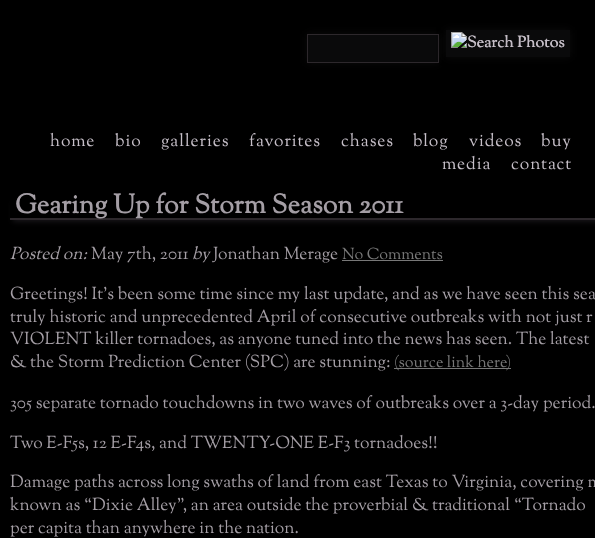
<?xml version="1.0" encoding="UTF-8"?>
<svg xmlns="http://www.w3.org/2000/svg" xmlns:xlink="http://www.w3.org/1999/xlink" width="595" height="538">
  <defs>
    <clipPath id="clip1"><path d="M 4 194 h 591 v 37 h -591 z m 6 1 h 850 v 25 h -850 z" clip-rule="evenodd" /></clipPath>
  </defs>
  <rect width="100%" height="100%" fill="#000000" />
  <rect x="307" y="34" width="132" height="29" fill="#0c0b0c" filter="blur(4px)" />
  <rect x="307.5" y="34.5" width="131" height="28" fill="#0a0a0b" stroke="#2d282c" />
  <rect x="446" y="30" width="124" height="27" fill="#0c0b0c" filter="blur(4px)" />
  <rect x="446" y="30" width="124" height="27" fill="#0a0a0b" />
  <image x="451" y="32" width="114" height="16" xlink:href="image1.png" />
  <g clip-path="url(#clip1)">
    <rect x="13" y="203" width="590" height="19" fill="#161417" filter="blur(2.5px)" />
  </g>
  <rect x="10" y="218" width="585" height="2" fill="#2d282c" />
  <rect x="342" y="260" width="101" height="1" fill="#787878" />
  <rect x="394" y="368" width="117" height="1" fill="#787878" />
  <text x="467" y="47" style="font-family: Sorts Mill Goudy; font-size: 16px; fill: #c6bfc8">Search Photos</text>
  <text x="50" y="146" style="font-family: Sorts Mill Goudy; font-size: 17.35px; letter-spacing: 0.9px; fill: #c6bfc8">home</text>
  <text x="115" y="146" style="font-family: Sorts Mill Goudy; font-size: 17.35px; letter-spacing: 0.9px; fill: #c6bfc8">bio</text>
  <text x="161" y="146" style="font-family: Sorts Mill Goudy; font-size: 17.35px; letter-spacing: 0.9px; fill: #c6bfc8">galleries</text>
  <text x="249" y="146" style="font-family: Sorts Mill Goudy; font-size: 17.35px; letter-spacing: 0.9px; fill: #c6bfc8">favorites</text>
  <text x="341" y="146" style="font-family: Sorts Mill Goudy; font-size: 17.35px; letter-spacing: 0.9px; fill: #c6bfc8">chases</text>
  <text x="413" y="146" style="font-family: Sorts Mill Goudy; font-size: 17.35px; letter-spacing: 0.9px; fill: #c6bfc8">blog</text>
  <text x="469" y="146" style="font-family: Sorts Mill Goudy; font-size: 17.35px; letter-spacing: 0.9px; fill: #c6bfc8">videos</text>
  <text x="541" y="146" style="font-family: Sorts Mill Goudy; font-size: 17.35px; letter-spacing: 0.9px; fill: #c6bfc8">buy</text>
  <text x="442" y="169" style="font-family: Sorts Mill Goudy; font-size: 17.35px; letter-spacing: 0.9px; fill: #c6bfc8">media</text>
  <text x="511" y="169" style="font-family: Sorts Mill Goudy; font-size: 17.35px; letter-spacing: 0.9px; fill: #c6bfc8">contact</text>
  <text x="15" y="213" style="font-family: Sorts Mill Goudy; font-size: 26.7px; font-weight: bold; fill: #a49ea5">Gearing Up for Storm Season 2011</text>
  <text x="10" y="259" style="font-family: Sorts Mill Goudy; font-size: 17.35px; font-style: italic; fill: #a49ea5">Posted on:</text>
  <text x="91" y="259" style="font-family: Sorts Mill Goudy; font-size: 17.35px; fill: #a49ea5">May 7th, 2011</text>
  <text x="192" y="259" style="font-family: Sorts Mill Goudy; font-size: 17.35px; font-style: italic; fill: #a49ea5">by</text>
  <text x="213" y="259" style="font-family: Sorts Mill Goudy; font-size: 17.35px; fill: #a49ea5">Jonathan Merage</text>
  <text x="342" y="259" style="font-family: Sorts Mill Goudy; font-size: 16px; fill: #787878">No Comments</text>
  <text x="10" y="299" style="font-family: Sorts Mill Goudy; font-size: 17.35px; fill: #a49ea5">Greetings! It’s been some time since my last update, and as we have seen this sea</text>
  <text x="10" y="322" style="font-family: Sorts Mill Goudy; font-size: 17.35px; fill: #a49ea5">truly historic and unprecedented April of consecutive outbreaks with not just r</text>
  <text x="10" y="344" style="font-family: Sorts Mill Goudy; font-size: 17.35px; fill: #a49ea5">VIOLENT killer tornadoes, as anyone tuned into the news has seen. The latest</text>
  <text x="10" y="367" style="font-family: Sorts Mill Goudy; font-size: 17.35px; fill: #a49ea5">&amp; the Storm Prediction Center (SPC) are stunning:</text>
  <text x="394" y="367" style="font-family: Sorts Mill Goudy; font-size: 16px; fill: #787878">(source link here)</text>
  <text x="10" y="408" style="font-family: Sorts Mill Goudy; font-size: 17.35px; fill: #a49ea5">305 separate tornado touchdowns in two waves of outbreaks over a 3-day period.</text>
  <text x="10" y="448" style="font-family: Sorts Mill Goudy; font-size: 17.35px; fill: #a49ea5">Two E-F5s, 12 E-F4s, and TWENTY-ONE E-F3 tornadoes!!</text>
  <text x="10" y="487" style="font-family: Sorts Mill Goudy; font-size: 17.35px; fill: #a49ea5">Damage paths across long swaths of land from east Texas to Virginia, covering m</text>
  <text x="10" y="510" style="font-family: Sorts Mill Goudy; font-size: 17.35px; fill: #a49ea5">known as “Dixie Alley”, an area outside the proverbial &amp; traditional “Tornado</text>
  <text x="10" y="533" style="font-family: Sorts Mill Goudy; font-size: 17.35px; fill: #a49ea5">per capita than anywhere in the nation.</text>
</svg>
